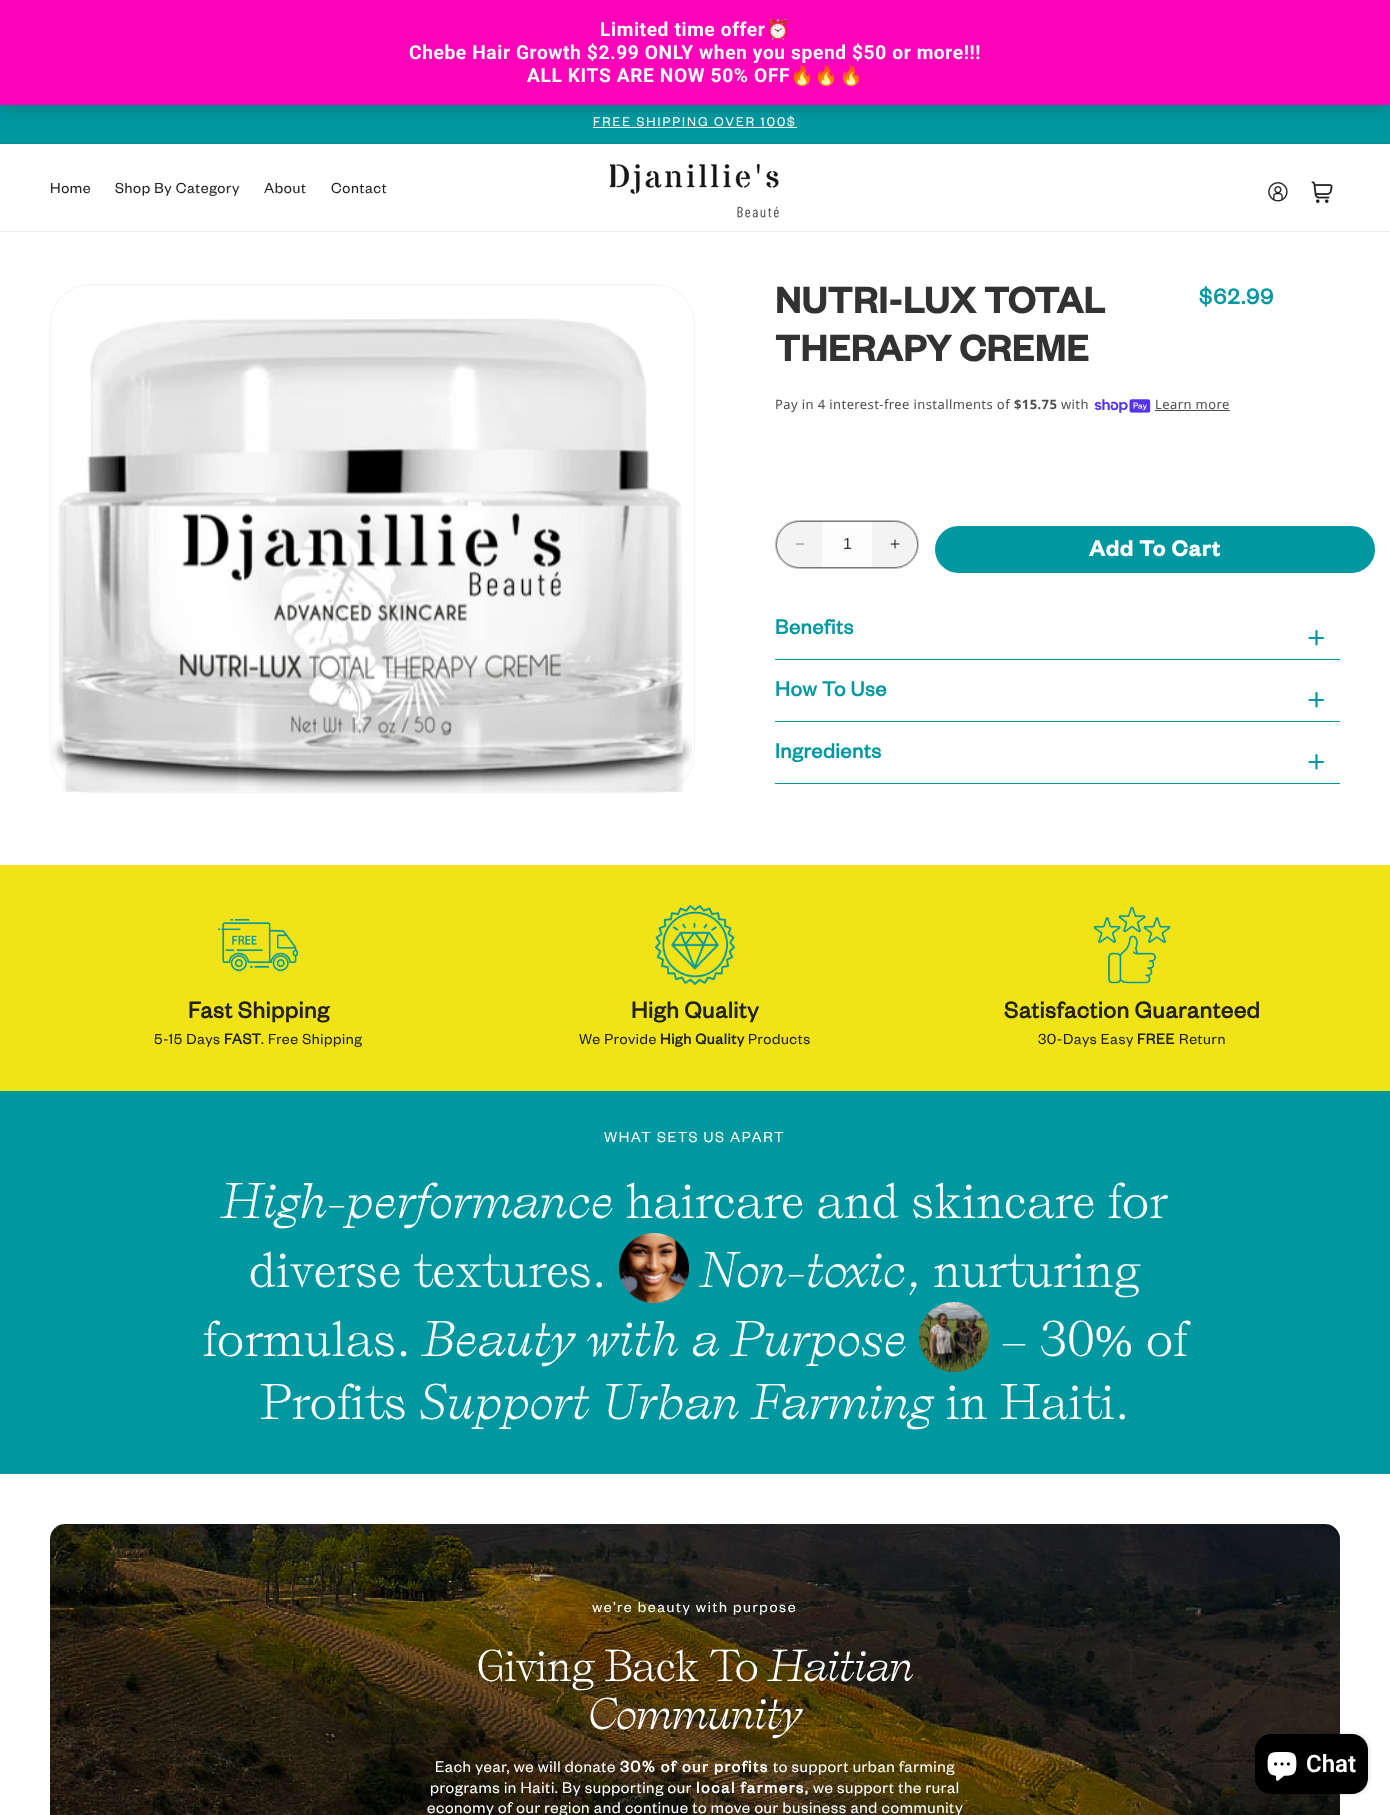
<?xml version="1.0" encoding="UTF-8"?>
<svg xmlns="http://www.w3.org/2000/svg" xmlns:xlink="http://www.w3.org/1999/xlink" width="1390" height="1815">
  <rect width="100%" height="100%" fill="#ffffff" />
  <rect y="105" width="1390" height="38" fill="#0098a0" />
  <rect x="2" y="6" width="1386" height="101" fill="#000000" fill-opacity="0.05" filter="blur(3px)" />
  <rect x="593" y="127" width="204" height="1" fill="#ffffff" />
  <rect x="3" y="13" width="1384" height="99" fill="#000000" fill-opacity="0.1" filter="blur(7.5px)" />
  <rect width="1390" height="105" fill="#fc03ba" />
  <rect y="143" width="1390" height="1" fill="#018d95" />
  <rect y="231" width="1390" height="1" fill="#ececec" />
  <image x="610" y="164" width="169" height="54" xlink:href="image1.png" />
  <image x="1268" y="182" width="20" height="20" xlink:href="image2.png" />
  <image x="1311" y="181" width="22" height="22" xlink:href="image3.png" />
  <rect x="50.5" y="284.5" width="644" height="508" rx="39.5" fill="none" stroke="#f3f3f3" />
  <image x="51" y="318" width="642" height="474" xlink:href="image4.png" />
  <image x="1094" y="399" width="57" height="14" xlink:href="image5.png" />
  <rect x="1155" y="410" width="75" height="1" fill="#4d4d4d" />
  <rect x="775.5" y="520.5" width="143" height="48" rx="24" fill="#f3f3f3" stroke="#b8b8b8" />
  <image x="795" y="543" width="10" height="2" xlink:href="image6.png" />
  <rect x="822" y="521" width="50" height="47" fill="#fdfdfd" />
  <image x="890" y="539" width="10" height="10" xlink:href="image7.png" />
  <rect x="776.5" y="521.5" width="141" height="46" rx="23" fill="none" stroke="#121212" stroke-opacity="0.55" />
  <rect x="935" y="526" width="440" height="47" rx="23.5" fill="#0098a0" />
  <rect x="775" y="659" width="565" height="1" fill="#0098a0" />
  <path d="M 1316.5 631 v 13.5 m 6.5 -6.5 h -13.5" fill="none" stroke="#0098a0" stroke-width="2.2" stroke-linecap="round" />
  <rect x="775" y="721" width="565" height="1" fill="#0098a0" />
  <path d="M 1316.5 693 v 13.5 m 6.5 -6.5 h -13.5" fill="none" stroke="#0098a0" stroke-width="2.2" stroke-linecap="round" />
  <rect x="775" y="783" width="565" height="1" fill="#0098a0" />
  <path d="M 1316.5 755 v 13.5 m 6.5 -6.5 h -13.5" fill="none" stroke="#0098a0" stroke-width="2.2" stroke-linecap="round" />
  <rect y="865" width="1390" height="226" fill="#f0e419" />
  <image x="218" y="918" width="80" height="54" xlink:href="image8.png" />
  <image x="655" y="905" width="80" height="80" xlink:href="image9.png" />
  <image x="1093" y="906" width="78" height="78" xlink:href="image10.png" />
  <rect y="1091" width="1390" height="383" fill="#0098a0" />
  <image x="619" y="1233" width="70" height="70" xlink:href="image11.png" />
  <image x="919" y="1302" width="70" height="70" xlink:href="image12.png" />
  <image x="50" y="1524" width="1290" height="291" xlink:href="image13.png" />
  <rect x="1255" y="1734" width="113" height="60" rx="16" fill="#000000" fill-opacity="0.15" filter="blur(2.5px)" />
  <rect x="1255" y="1734" width="113" height="60" rx="16" fill="#000000" />
  <image x="1267" y="1752" width="30" height="29" xlink:href="image14.png" />
  <text x="600" y="36" style="font-family: Roboto; font-size: 19.2px; font-weight: bold; letter-spacing: 0.6px; fill: #ffffff">Limited time offer</text>
  <text x="766" y="36" style="font-family: Noto Color Emoji; font-size: 19.2px; font-weight: bold; letter-spacing: 0.6px; fill: #ffffff">⏰</text>
  <text x="409" y="59" style="font-family: Roboto; font-size: 19.2px; font-weight: bold; letter-spacing: 0.6px; fill: #ffffff">Chebe Hair Growth $2.99 ONLY when you spend $50 or more!!!</text>
  <text x="527" y="82" style="font-family: Roboto; font-size: 19.2px; font-weight: bold; letter-spacing: 0.6px; fill: #ffffff">ALL KITS ARE NOW 50% OFF</text>
  <text x="790" y="82" style="font-family: Noto Color Emoji; font-size: 19.2px; font-weight: bold; letter-spacing: 0.6px; fill: #ffffff">🔥🔥🔥</text>
  <text x="593" y="126" style="font-family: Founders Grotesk; font-size: 14px; letter-spacing: 2px; fill: #ffffff">FREE SHIPPING OVER 100$</text>
  <text x="50" y="193" style="font-family: Founders Grotesk; font-size: 16px; letter-spacing: 0.6px; fill: #222222">Home</text>
  <text x="115" y="193" style="font-family: Founders Grotesk; font-size: 16px; letter-spacing: 0.6px; fill: #222222">Shop By Category</text>
  <text x="264" y="193" style="font-family: Founders Grotesk; font-size: 16px; letter-spacing: 0.6px; fill: #222222">About</text>
  <text x="331" y="193" style="font-family: Founders Grotesk; font-size: 16px; letter-spacing: 0.6px; fill: #222222">Contact</text>
  <text x="775" y="313" style="font-family: 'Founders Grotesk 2'; font-size: 40px; font-weight: bold; letter-spacing: 0.6px; fill: #323232">NUTRI-LUX TOTAL</text>
  <text x="775" y="361" style="font-family: 'Founders Grotesk 2'; font-size: 40px; font-weight: bold; letter-spacing: 0.6px; fill: #323232">THERAPY CREME</text>
  <text x="1199" y="304" style="font-family: Founders Grotesk; font-size: 23.5px; font-weight: bold; letter-spacing: 1.25px; fill: #0098a0">$62.99</text>
  <text x="775" y="409" style="font-family: Noto Sans; font-size: 13px; letter-spacing: 0.4px; fill: #4d4d4d">Pay in 4 interest-free installments of</text>
  <text x="1014" y="409" style="font-family: Noto Sans; font-size: 13px; font-weight: bold; letter-spacing: 0.4px; fill: #4d4d4d">$15.75</text>
  <text x="1061" y="409" style="font-family: Noto Sans; font-size: 13px; letter-spacing: 0.4px; fill: #4d4d4d">with</text>
  <text x="1155" y="409" style="font-family: Noto Sans; font-size: 13px; letter-spacing: 0.4px; fill: #4d4d4d">Learn more</text>
  <text x="843" y="549" style="font-family: Liberation Sans; font-size: 16px; fill: #323232">1</text>
  <text x="1089" y="556" style="font-family: 'Founders Grotesk 2'; font-size: 24px; font-weight: bold; letter-spacing: 1px; fill: #ffffff">Add To Cart</text>
  <text x="775" y="634" style="font-family: Founders Grotesk; font-size: 22.5px; font-weight: bold; letter-spacing: 0.6px; fill: #0098a0">Benefits</text>
  <text x="775" y="696" style="font-family: Founders Grotesk; font-size: 22.5px; font-weight: bold; letter-spacing: 0.6px; fill: #0098a0">How To Use</text>
  <text x="775" y="758" style="font-family: Founders Grotesk; font-size: 22.5px; font-weight: bold; letter-spacing: 0.6px; fill: #0098a0">Ingredients</text>
  <text x="188" y="1018" style="font-family: Founders Grotesk; font-size: 25px; font-weight: bold; letter-spacing: 0.6px; fill: #222222">Fast Shipping</text>
  <text x="154" y="1044" style="font-family: Founders Grotesk; font-size: 16px; letter-spacing: 0.6px; fill: #222222">5-15 Days</text>
  <text x="224" y="1044" style="font-family: Founders Grotesk; font-size: 16px; font-weight: bold; letter-spacing: 0.6px; fill: #222222">FAST</text>
  <text x="261" y="1044" style="font-family: Founders Grotesk; font-size: 16px; letter-spacing: 0.6px; fill: #222222">. Free Shipping</text>
  <text x="631" y="1018" style="font-family: Founders Grotesk; font-size: 25px; font-weight: bold; letter-spacing: 0.6px; fill: #222222">High Quality</text>
  <text x="579" y="1044" style="font-family: Founders Grotesk; font-size: 16px; letter-spacing: 0.6px; fill: #222222">We Provide</text>
  <text x="660" y="1044" style="font-family: Founders Grotesk; font-size: 16px; font-weight: bold; letter-spacing: 0.6px; fill: #222222">High Quality</text>
  <text x="748" y="1044" style="font-family: Founders Grotesk; font-size: 16px; letter-spacing: 0.6px; fill: #222222">Products</text>
  <text x="1004" y="1018" style="font-family: Founders Grotesk; font-size: 25px; font-weight: bold; letter-spacing: 0.6px; fill: #222222">Satisfaction Guaranteed</text>
  <text x="1038" y="1044" style="font-family: Founders Grotesk; font-size: 16px; letter-spacing: 0.6px; fill: #222222">30-Days Easy</text>
  <text x="1137" y="1044" style="font-family: Founders Grotesk; font-size: 16px; font-weight: bold; letter-spacing: 0.6px; fill: #222222">FREE</text>
  <text x="1179" y="1044" style="font-family: Founders Grotesk; font-size: 16px; letter-spacing: 0.6px; fill: #222222">Return</text>
  <text x="604" y="1142" style="font-family: Founders Grotesk; font-size: 16px; letter-spacing: 1.6px; fill: #ffffff">WHAT SETS US APART</text>
  <text x="222" y="1218" style="font-family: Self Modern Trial; font-size: 45px; font-weight: 300; font-style: italic; letter-spacing: 0.6px; fill: #ffffff">High-performance</text>
  <text x="626" y="1218" style="font-family: Self Modern Trial; font-size: 45px; letter-spacing: 0.6px; fill: #ffffff">haircare and skincare for</text>
  <text x="249" y="1287" style="font-family: Self Modern Trial; font-size: 45px; letter-spacing: 0.6px; fill: #ffffff">diverse textures.</text>
  <text x="701" y="1287" style="font-family: Self Modern Trial; font-size: 45px; font-weight: 300; font-style: italic; letter-spacing: 0.6px; fill: #ffffff">Non-toxic</text>
  <text x="907" y="1287" style="font-family: Self Modern Trial; font-size: 45px; letter-spacing: 0.6px; fill: #ffffff">, nurturing</text>
  <text x="203" y="1356" style="font-family: Self Modern Trial; font-size: 45px; letter-spacing: 0.6px; fill: #ffffff">formulas.</text>
  <text x="423" y="1356" style="font-family: Self Modern Trial; font-size: 45px; font-weight: 300; font-style: italic; letter-spacing: 0.6px; fill: #ffffff">Beauty with a Purpose</text>
  <text x="1001" y="1356" style="font-family: Self Modern Trial; font-size: 45px; letter-spacing: 0.6px; fill: #ffffff">– 30</text>
  <text x="1095" y="1356" style="font-family: Liberation Serif; font-size: 45px; letter-spacing: 0.6px; fill: #ffffff">%</text>
  <text x="1146" y="1356" style="font-family: Self Modern Trial; font-size: 45px; letter-spacing: 0.6px; fill: #ffffff">of</text>
  <text x="260" y="1419" style="font-family: Self Modern Trial; font-size: 45px; letter-spacing: 0.6px; fill: #ffffff">Profits</text>
  <text x="420" y="1419" style="font-family: Self Modern Trial; font-size: 45px; font-weight: 300; font-style: italic; letter-spacing: 0.6px; fill: #ffffff">Support Urban Farming</text>
  <text x="946" y="1419" style="font-family: Self Modern Trial; font-size: 45px; letter-spacing: 0.6px; fill: #ffffff">in Haiti.</text>
  <text x="592" y="1612" style="font-family: Founders Grotesk; font-size: 16px; letter-spacing: 1.6px; fill: #ffffff">we’re beauty with purpose</text>
  <text x="477" y="1681" style="font-family: Self Modern Trial; font-size: 40px; letter-spacing: -0.4px; fill: #ffffff">Giving Back To</text>
  <text x="769" y="1681" style="font-family: Self Modern Trial; font-size: 40px; font-weight: 300; font-style: italic; letter-spacing: -0.4px; fill: #ffffff">Haitian</text>
  <text x="589" y="1729" style="font-family: Self Modern Trial; font-size: 40px; font-weight: 300; font-style: italic; letter-spacing: -0.4px; fill: #ffffff">Community</text>
  <text x="435" y="1772" style="font-family: Founders Grotesk; font-size: 17px; letter-spacing: 0.6px; fill: #ffffff">Each year, we will donate</text>
  <text x="620" y="1772" style="font-family: Founders Grotesk; font-size: 17px; font-weight: bold; letter-spacing: 1.6px; fill: #ffffff">30% of our profits</text>
  <text x="773" y="1772" style="font-family: Founders Grotesk; font-size: 17px; letter-spacing: 0.6px; fill: #ffffff">to support urban farming</text>
  <text x="430" y="1793" style="font-family: Founders Grotesk; font-size: 17px; letter-spacing: 0.6px; fill: #ffffff">programs in Haiti. By supporting our</text>
  <text x="696" y="1793" style="font-family: Founders Grotesk; font-size: 17px; font-weight: bold; letter-spacing: 1.6px; fill: #ffffff">local farmers,</text>
  <text x="813" y="1793" style="font-family: Founders Grotesk; font-size: 17px; letter-spacing: 0.6px; fill: #ffffff">we support the rural</text>
  <text x="427" y="1813" style="font-family: Founders Grotesk; font-size: 17px; letter-spacing: 0.6px; fill: #ffffff">economy of our region and continue to move our business and community</text>
  <text x="1306" y="1772" style="font-family: Roboto; font-size: 24px; font-weight: 600; fill: #ffffff">Chat</text>
</svg>
